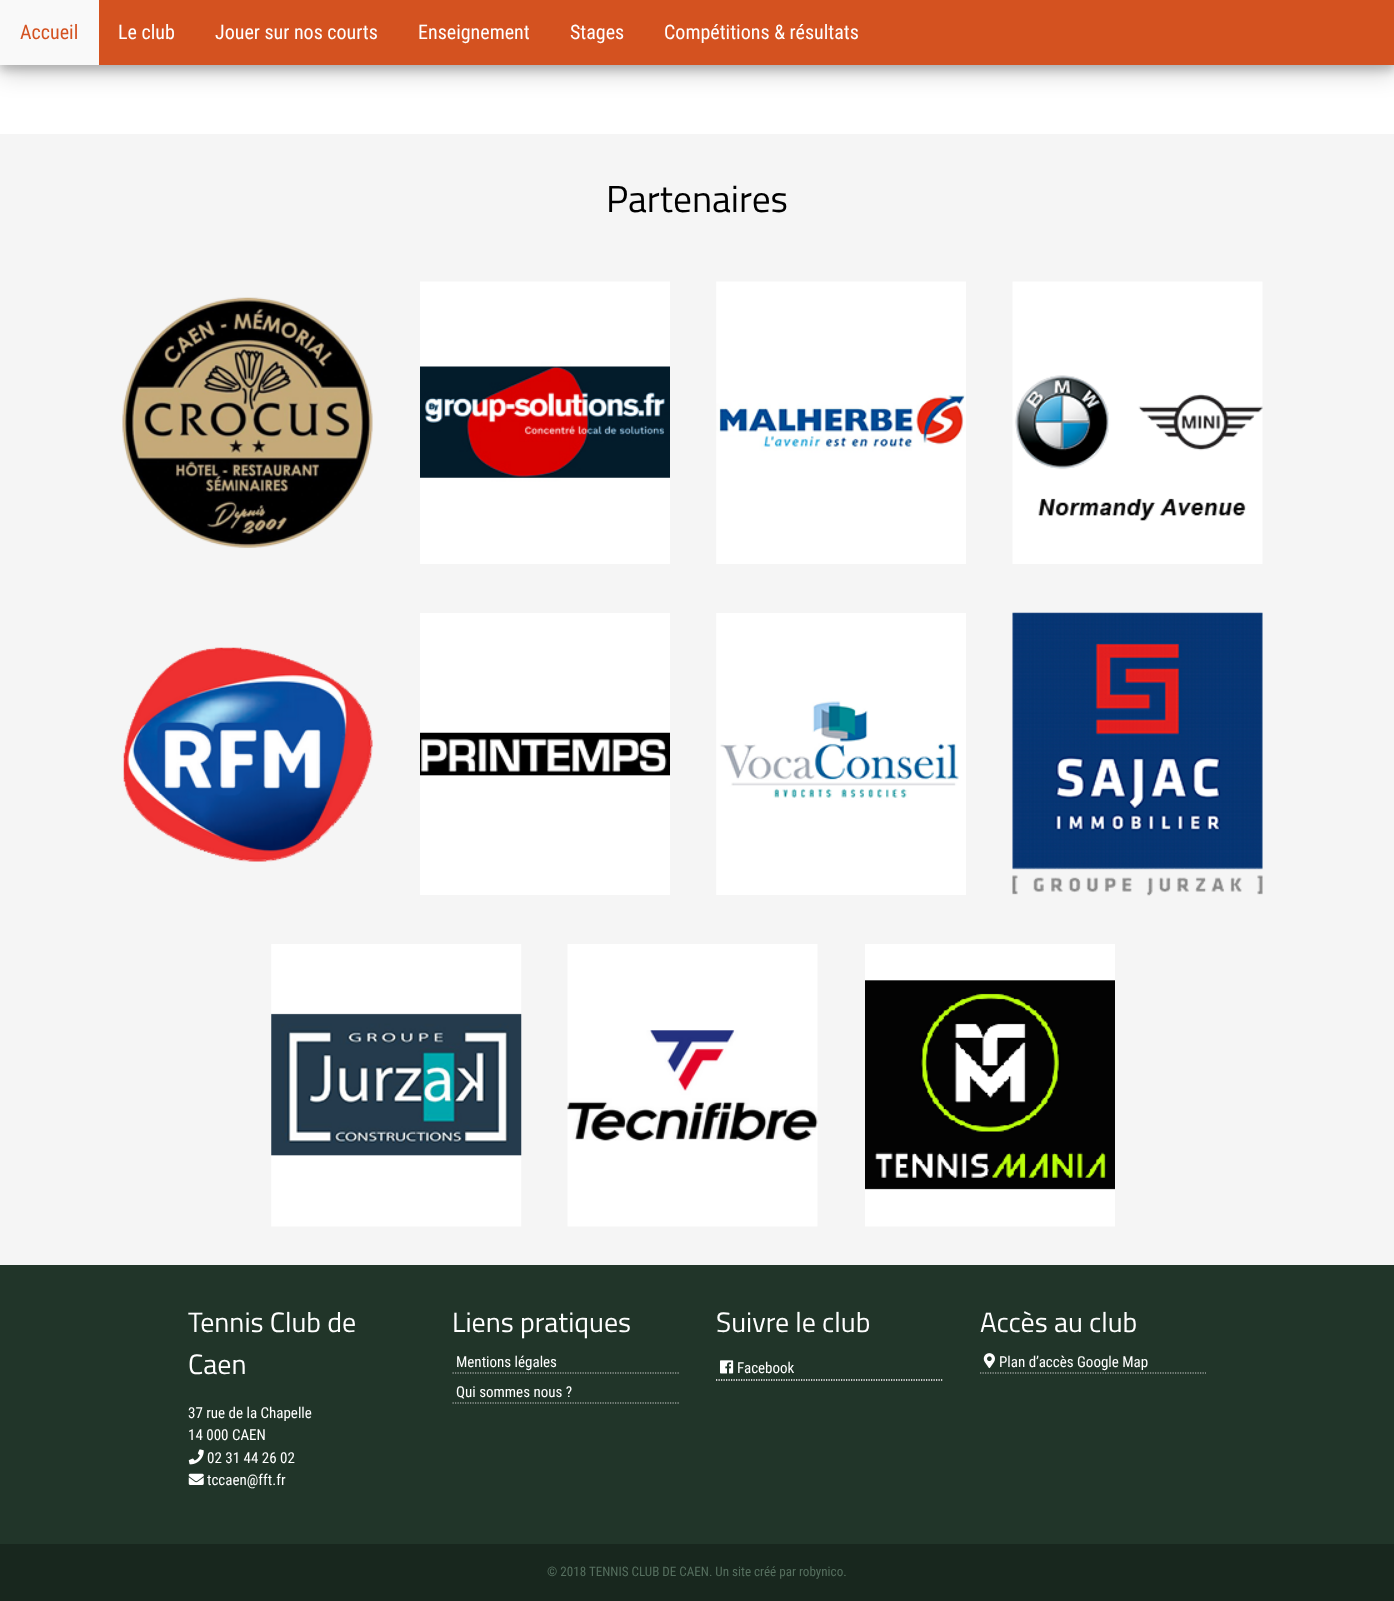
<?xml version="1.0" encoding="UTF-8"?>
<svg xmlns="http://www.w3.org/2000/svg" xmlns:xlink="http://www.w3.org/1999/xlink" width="1394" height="1601">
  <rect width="100%" height="100%" fill="#ffffff" />
  <rect y="8" width="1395" height="65" fill="#000000" fill-opacity="0.19" filter="blur(12.5px)" />
  <rect y="5" width="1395" height="65" fill="#000000" fill-opacity="0.2" filter="blur(5px)" />
  <rect x="99" width="1295" height="65" fill="#d45220" />
  <rect width="99" height="65" fill="#f9f9f9" />
  <rect y="134" width="1394" height="1131" fill="#f5f5f5" />
  <image x="122" y="297" width="251" height="251" xlink:href="image1.png" />
  <image x="420" y="281" width="250" height="283" xlink:href="image2.png" />
  <image x="716" y="281" width="250" height="283" xlink:href="image3.png" />
  <image x="1012" y="281" width="251" height="283" xlink:href="image4.png" />
  <image x="123" y="647" width="250" height="215" xlink:href="image5.png" />
  <image x="420" y="613" width="250" height="282" xlink:href="image6.png" />
  <image x="716" y="613" width="250" height="282" xlink:href="image7.png" />
  <image x="1012" y="612" width="251" height="284" xlink:href="image8.png" />
  <image x="271" y="944" width="251" height="283" xlink:href="image9.png" />
  <image x="567" y="944" width="251" height="283" xlink:href="image10.png" />
  <image x="865" y="944" width="250" height="283" xlink:href="image11.png" />
  <rect y="1265" width="1394" height="279" fill="#213529" />
  <image x="188" y="1449" width="16" height="16" xlink:href="image12.png" />
  <image x="188" y="1473" width="16" height="12" xlink:href="image13.png" />
  <path d="M 452.5 1373 h 226.5" fill="none" stroke="#cccccc" stroke-width="1.2" stroke-dasharray="1.25 1.25" />
  <path d="M 452.5 1403 h 226.5" fill="none" stroke="#cccccc" stroke-width="1.2" stroke-dasharray="1.25 1.25" />
  <path d="M 716 1380.5 h 226.5" fill="none" stroke="#cccccc" stroke-width="1.2" stroke-dasharray="1.25 1.25" />
  <path d="M 716 1379.5 h 226.5" fill="none" stroke="#cccccc" stroke-width="1.2" stroke-dasharray="1.25 1.25" />
  <image x="720" y="1360" width="14" height="14" xlink:href="image14.png" />
  <path d="M 980 1373 h 226" fill="none" stroke="#cccccc" stroke-width="1.2" stroke-dasharray="1.25 1.25" />
  <image x="983" y="1353" width="12" height="16" xlink:href="image15.png" />
  <rect y="1544" width="1394" height="57" fill="#18271e" />
  <text x="20" y="39" style="font-family: Roboto Condensed; font-size: 20px; fill: #d45220">Accueil</text>
  <text x="118" y="39" style="font-family: Roboto Condensed; font-size: 20px; fill: #ffffff">Le club</text>
  <text x="215" y="39" style="font-family: Roboto Condensed; font-size: 20px; fill: #ffffff">Jouer sur nos courts</text>
  <text x="418" y="39" style="font-family: Roboto Condensed; font-size: 20px; fill: #ffffff">Enseignement</text>
  <text x="570" y="39" style="font-family: Roboto Condensed; font-size: 20px; fill: #ffffff">Stages</text>
  <text x="664" y="39" style="font-family: Roboto Condensed; font-size: 20px; fill: #ffffff">Compétitions &amp; résultats</text>
  <text x="606" y="212" style="font-family: Titillium Web; font-size: 37.5px; fill: #000000">Partenaires</text>
  <text x="188" y="1332" style="font-family: Titillium Web; font-size: 28px; fill: #ffffff">Tennis Club de</text>
  <text x="188" y="1374" style="font-family: Titillium Web; font-size: 28px; fill: #ffffff">Caen</text>
  <text x="188" y="1418" style="font-family: Roboto Condensed; font-size: 15px; fill: #ffffff">37 rue de la Chapelle</text>
  <text x="188" y="1440" style="font-family: Roboto Condensed; font-size: 15px; fill: #ffffff">14 000 CAEN</text>
  <text x="207" y="1463" style="font-family: Roboto Condensed; font-size: 15px; fill: #ffffff">02 31 44 26 02</text>
  <text x="207" y="1485" style="font-family: Roboto Condensed; font-size: 15px; fill: #ffffff">tccaen@fft.fr</text>
  <text x="452" y="1332" style="font-family: Titillium Web; font-size: 28px; fill: #ffffff">Liens pratiques</text>
  <text x="456" y="1367" style="font-family: Roboto Condensed; font-size: 15px; fill: #ffffff">Mentions légales</text>
  <text x="456" y="1397" style="font-family: Roboto Condensed; font-size: 15px; fill: #ffffff">Qui sommes nous ?</text>
  <text x="716" y="1332" style="font-family: Titillium Web; font-size: 28px; fill: #ffffff">Suivre le club</text>
  <text x="737" y="1373" style="font-family: Roboto Condensed; font-size: 15px; fill: #ffffff">Facebook</text>
  <text x="980" y="1332" style="font-family: Titillium Web; font-size: 28px; fill: #ffffff">Accès au club</text>
  <text x="999" y="1367" style="font-family: Roboto Condensed; font-size: 15px; fill: #ffffff">Plan d’accès Google Map</text>
  <text x="547" y="1576" style="font-family: Roboto Condensed; font-size: 13.1px; fill: #566f5f">© 2018 TENNIS CLUB DE CAEN. Un site créé par robynico.</text>
</svg>
